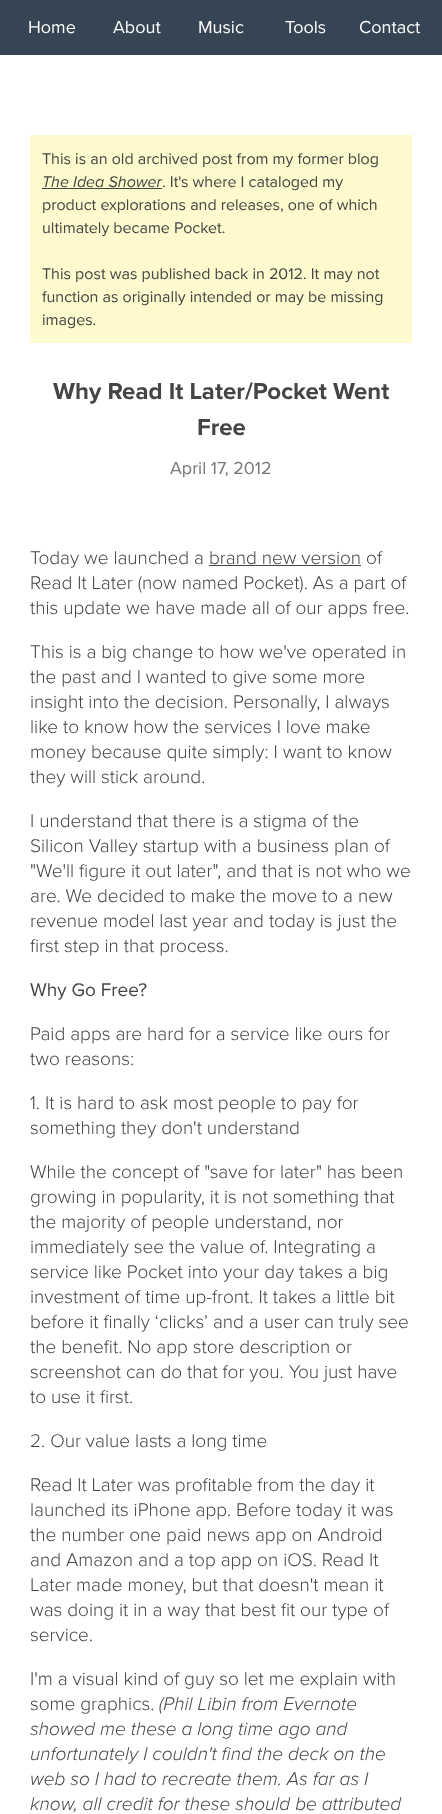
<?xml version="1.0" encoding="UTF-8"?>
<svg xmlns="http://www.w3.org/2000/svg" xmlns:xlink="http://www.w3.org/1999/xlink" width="442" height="1814">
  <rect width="100%" height="100%" fill="#ffffff" />
  <rect width="442" height="55" fill="#354554" />
  <rect x="30" y="135" width="382" height="208" fill="#fffacd" />
  <rect x="42" y="188" width="120" height="1" fill="#454545" />
  <rect x="209" y="565" width="152" height="1" fill="#454545" />
  <text x="28" y="33" style="font-family: Proxima Nova; font-size: 18px; fill: #fdfdfd">Home</text>
  <text x="113" y="33" style="font-family: Proxima Nova; font-size: 18px; fill: #fdfdfd">About</text>
  <text x="198" y="33" style="font-family: Proxima Nova; font-size: 18px; fill: #fdfdfd">Music</text>
  <text x="285" y="33" style="font-family: Proxima Nova; font-size: 18px; fill: #fdfdfd">Tools</text>
  <text x="359" y="33" style="font-family: Proxima Nova; font-size: 18px; fill: #fdfdfd">Contact</text>
  <text x="42" y="164" style="font-family: Proxima Nova; font-size: 16px; fill: #454545">This is an old archived post from my former blog</text>
  <text x="42" y="187" style="font-family: Proxima Nova; font-size: 16px; font-style: italic; fill: #454545">The Idea Shower</text>
  <text x="162" y="187" style="font-family: Proxima Nova; font-size: 16px; fill: #454545">. It's where I cataloged my</text>
  <text x="42" y="210" style="font-family: Proxima Nova; font-size: 16px; fill: #454545">product explorations and releases, one of which</text>
  <text x="42" y="233" style="font-family: Proxima Nova; font-size: 16px; fill: #454545">ultimately became Pocket.</text>
  <text x="42" y="279" style="font-family: Proxima Nova; font-size: 16px; fill: #454545">This post was published back in 2012. It may not</text>
  <text x="42" y="302" style="font-family: Proxima Nova; font-size: 16px; fill: #454545">function as originally intended or may be missing</text>
  <text x="42" y="325" style="font-family: Proxima Nova; font-size: 16px; fill: #454545">images.</text>
  <text x="53" y="399" style="font-family: Proxima Nova; font-size: 24px; font-weight: bold; fill: #454545">Why Read It Later/Pocket Went</text>
  <text x="197" y="435" style="font-family: Proxima Nova; font-size: 24px; font-weight: bold; fill: #454545">Free</text>
  <text x="170" y="474" style="font-family: Proxima Nova; font-size: 18px; fill: #787878">April 17, 2012</text>
  <text x="30" y="564" style="font-family: Proxima Nova; font-size: 19px; font-weight: 300; fill: #454545">Today we launched a brand new version of</text>
  <text x="30" y="589" style="font-family: Proxima Nova; font-size: 19px; font-weight: 300; fill: #454545">Read It Later (now named Pocket). As a part of</text>
  <text x="30" y="614" style="font-family: Proxima Nova; font-size: 19px; font-weight: 300; fill: #454545">this update we have made all of our apps free.</text>
  <text x="30" y="658" style="font-family: Proxima Nova; font-size: 19px; font-weight: 300; fill: #454545">This is a big change to how we've operated in</text>
  <text x="30" y="683" style="font-family: Proxima Nova; font-size: 19px; font-weight: 300; fill: #454545">the past and I wanted to give some more</text>
  <text x="30" y="708" style="font-family: Proxima Nova; font-size: 19px; font-weight: 300; fill: #454545">insight into the decision. Personally, I always</text>
  <text x="30" y="733" style="font-family: Proxima Nova; font-size: 19px; font-weight: 300; fill: #454545">like to know how the services I love make</text>
  <text x="30" y="758" style="font-family: Proxima Nova; font-size: 19px; font-weight: 300; fill: #454545">money because quite simply: I want to know</text>
  <text x="30" y="783" style="font-family: Proxima Nova; font-size: 19px; font-weight: 300; fill: #454545">they will stick around.</text>
  <text x="30" y="827" style="font-family: Proxima Nova; font-size: 19px; font-weight: 300; fill: #454545">I understand that there is a stigma of the</text>
  <text x="30" y="852" style="font-family: Proxima Nova; font-size: 19px; font-weight: 300; fill: #454545">Silicon Valley startup with a business plan of</text>
  <text x="30" y="877" style="font-family: Proxima Nova; font-size: 19px; font-weight: 300; fill: #454545">"We'll figure it out later", and that is not who we</text>
  <text x="30" y="902" style="font-family: Proxima Nova; font-size: 19px; font-weight: 300; fill: #454545">are. We decided to make the move to a new</text>
  <text x="30" y="927" style="font-family: Proxima Nova; font-size: 19px; font-weight: 300; fill: #454545">revenue model last year and today is just the</text>
  <text x="30" y="952" style="font-family: Proxima Nova; font-size: 19px; font-weight: 300; fill: #454545">first step in that process.</text>
  <text x="30" y="996" style="font-family: Proxima Nova; font-size: 19px; fill: #454545">Why Go Free?</text>
  <text x="30" y="1040" style="font-family: Proxima Nova; font-size: 19px; font-weight: 300; fill: #454545">Paid apps are hard for a service like ours for</text>
  <text x="30" y="1065" style="font-family: Proxima Nova; font-size: 19px; font-weight: 300; fill: #454545">two reasons:</text>
  <text x="30" y="1109" style="font-family: Proxima Nova; font-size: 19px; font-weight: 300; fill: #454545">1. It is hard to ask most people to pay for</text>
  <text x="30" y="1134" style="font-family: Proxima Nova; font-size: 19px; font-weight: 300; fill: #454545">something they don't understand</text>
  <text x="30" y="1178" style="font-family: Proxima Nova; font-size: 19px; font-weight: 300; fill: #454545">While the concept of "save for later" has been</text>
  <text x="30" y="1203" style="font-family: Proxima Nova; font-size: 19px; font-weight: 300; fill: #454545">growing in popularity, it is not something that</text>
  <text x="30" y="1228" style="font-family: Proxima Nova; font-size: 19px; font-weight: 300; fill: #454545">the majority of people understand, nor</text>
  <text x="30" y="1253" style="font-family: Proxima Nova; font-size: 19px; font-weight: 300; fill: #454545">immediately see the value of. Integrating a</text>
  <text x="30" y="1278" style="font-family: Proxima Nova; font-size: 19px; font-weight: 300; fill: #454545">service like Pocket into your day takes a big</text>
  <text x="30" y="1303" style="font-family: Proxima Nova; font-size: 19px; font-weight: 300; fill: #454545">investment of time up-front. It takes a little bit</text>
  <text x="30" y="1328" style="font-family: Proxima Nova; font-size: 19px; font-weight: 300; fill: #454545">before it finally ‘clicks’ and a user can truly see</text>
  <text x="30" y="1353" style="font-family: Proxima Nova; font-size: 19px; font-weight: 300; fill: #454545">the benefit. No app store description or</text>
  <text x="30" y="1378" style="font-family: Proxima Nova; font-size: 19px; font-weight: 300; fill: #454545">screenshot can do that for you. You just have</text>
  <text x="30" y="1403" style="font-family: Proxima Nova; font-size: 19px; font-weight: 300; fill: #454545">to use it first.</text>
  <text x="30" y="1447" style="font-family: Proxima Nova; font-size: 19px; font-weight: 300; fill: #454545">2. Our value lasts a long time</text>
  <text x="30" y="1491" style="font-family: Proxima Nova; font-size: 19px; font-weight: 300; fill: #454545">Read It Later was profitable from the day it</text>
  <text x="30" y="1516" style="font-family: Proxima Nova; font-size: 19px; font-weight: 300; fill: #454545">launched its iPhone app. Before today it was</text>
  <text x="30" y="1541" style="font-family: Proxima Nova; font-size: 19px; font-weight: 300; fill: #454545">the number one paid news app on Android</text>
  <text x="30" y="1566" style="font-family: Proxima Nova; font-size: 19px; font-weight: 300; fill: #454545">and Amazon and a top app on iOS. Read It</text>
  <text x="30" y="1591" style="font-family: Proxima Nova; font-size: 19px; font-weight: 300; fill: #454545">Later made money, but that doesn't mean it</text>
  <text x="30" y="1616" style="font-family: Proxima Nova; font-size: 19px; font-weight: 300; fill: #454545">was doing it in a way that best fit our type of</text>
  <text x="30" y="1641" style="font-family: Proxima Nova; font-size: 19px; font-weight: 300; fill: #454545">service.</text>
  <text x="30" y="1685" style="font-family: Proxima Nova; font-size: 19px; font-weight: 300; fill: #454545">I'm a visual kind of guy so let me explain with</text>
  <text x="30" y="1710" style="font-family: Proxima Nova; font-size: 19px; font-weight: 300; fill: #454545">some graphics.</text>
  <text x="159" y="1710" style="font-family: Proxima Nova; font-size: 19px; font-weight: 300; font-style: italic; fill: #454545">(Phil Libin from Evernote</text>
  <text x="30" y="1735" style="font-family: Proxima Nova; font-size: 19px; font-weight: 300; font-style: italic; fill: #454545">showed me these a long time ago and</text>
  <text x="30" y="1760" style="font-family: Proxima Nova; font-size: 19px; font-weight: 300; font-style: italic; fill: #454545">unfortunately I couldn't find the deck on the</text>
  <text x="30" y="1785" style="font-family: Proxima Nova; font-size: 19px; font-weight: 300; font-style: italic; fill: #454545">web so I had to recreate them. As far as I</text>
  <text x="30" y="1810" style="font-family: Proxima Nova; font-size: 19px; font-weight: 300; font-style: italic; fill: #454545">know, all credit for these should be attributed</text>
</svg>
